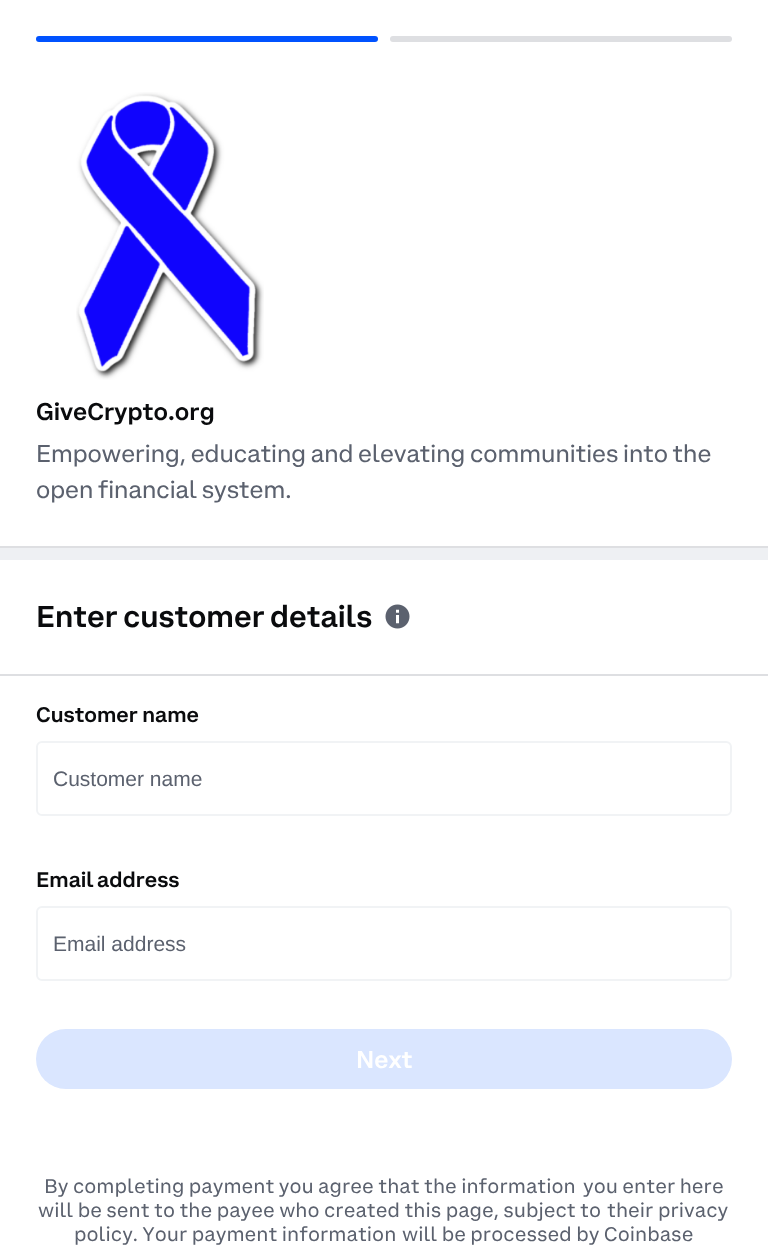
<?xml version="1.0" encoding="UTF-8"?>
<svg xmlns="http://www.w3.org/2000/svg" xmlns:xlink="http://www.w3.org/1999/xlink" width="768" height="1249">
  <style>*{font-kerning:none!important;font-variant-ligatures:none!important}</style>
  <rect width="100%" height="100%" fill="#ffffff" />
  <rect x="36" y="36" width="342" height="6" rx="3" fill="#0052ff" />
  <rect x="390" y="36" width="342" height="6" rx="3" fill="#dedfe2" />
  <rect y="546" width="768" height="2" fill="#dedfe2" />
  <image x="76" y="92" width="188" height="288" xlink:href="image1.png" />
  <rect y="548" width="768" height="12" fill="#eef0f3" />
  <rect y="674" width="768" height="2" fill="#dedfe2" />
  <image x="385" y="604" width="25" height="25" xlink:href="image2.png" />
  <rect x="37" y="742" width="694" height="73" rx="5" fill="none" stroke="#f1f3f5" stroke-width="2" />
  <rect x="37" y="907" width="694" height="73" rx="5" fill="none" stroke="#f1f3f5" stroke-width="2" />
  <rect x="36" y="1029" width="696" height="60" rx="30" fill="#dae6ff" />
  <text x="36" y="420" style="font-family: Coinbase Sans; font-size: 24px; font-weight: 500; fill: #0a0b0d">GiveCrypto.org</text>
  <text x="36" y="462" word-spacing="-0.75" style="font-family: Coinbase Sans; font-size: 24px; fill: #5b616e">Empowering, educating and elevating communities into the</text>
  <text x="36" y="498" word-spacing="-0.75" style="font-family: Coinbase Sans; font-size: 24px; fill: #5b616e">open financial system.</text>
  <text x="36" y="627" word-spacing="-1" style="font-family: Coinbase Sans; font-size: 30px; font-weight: 500; fill: #0a0b0d">Enter customer details</text>
  <text x="36" y="722" style="font-family: Coinbase Sans; font-size: 21px; font-weight: 500; fill: #0a0b0d">Customer name</text>
  <text x="53" y="786" style="font-family: Liberation Sans; font-size: 21px; fill: #5b616e">Customer name</text>
  <text x="36" y="887" word-spacing="-1" style="font-family: Coinbase Sans; font-size: 21px; font-weight: 500; fill: #0a0b0d">Email address</text>
  <text x="53" y="951" style="font-family: Liberation Sans; font-size: 21px; fill: #5b616e">Email address</text>
  <text x="356" y="1068" style="font-family: Coinbase Sans; font-size: 24px; font-weight: 500; fill: #ffffff">Next</text>
  <text x="44" y="1193" word-spacing="-0.25" style="font-family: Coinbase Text; font-size: 19.5px; fill: #5b616e">By completing payment you agree that the information</text>
  <text x="583" y="1193" word-spacing="-0.25" style="font-family: Coinbase Text; font-size: 19.5px; fill: #5b616e">you enter here</text>
  <text x="38" y="1217" word-spacing="-0.25" style="font-family: Coinbase Text; font-size: 19.5px; fill: #5b616e">will be sent to the payee who created this page, subject to</text>
  <text x="607" y="1217" word-spacing="-0.25" style="font-family: Coinbase Text; font-size: 19.5px; fill: #5b616e">their privacy</text>
  <text x="74" y="1241" word-spacing="-0.25" style="font-family: Coinbase Text; font-size: 19.5px; fill: #5b616e">policy. Your payment information</text>
  <text x="402" y="1241" word-spacing="-0.25" style="font-family: Coinbase Text; font-size: 19.5px; fill: #5b616e">will be processed by Coinbase</text>
</svg>
